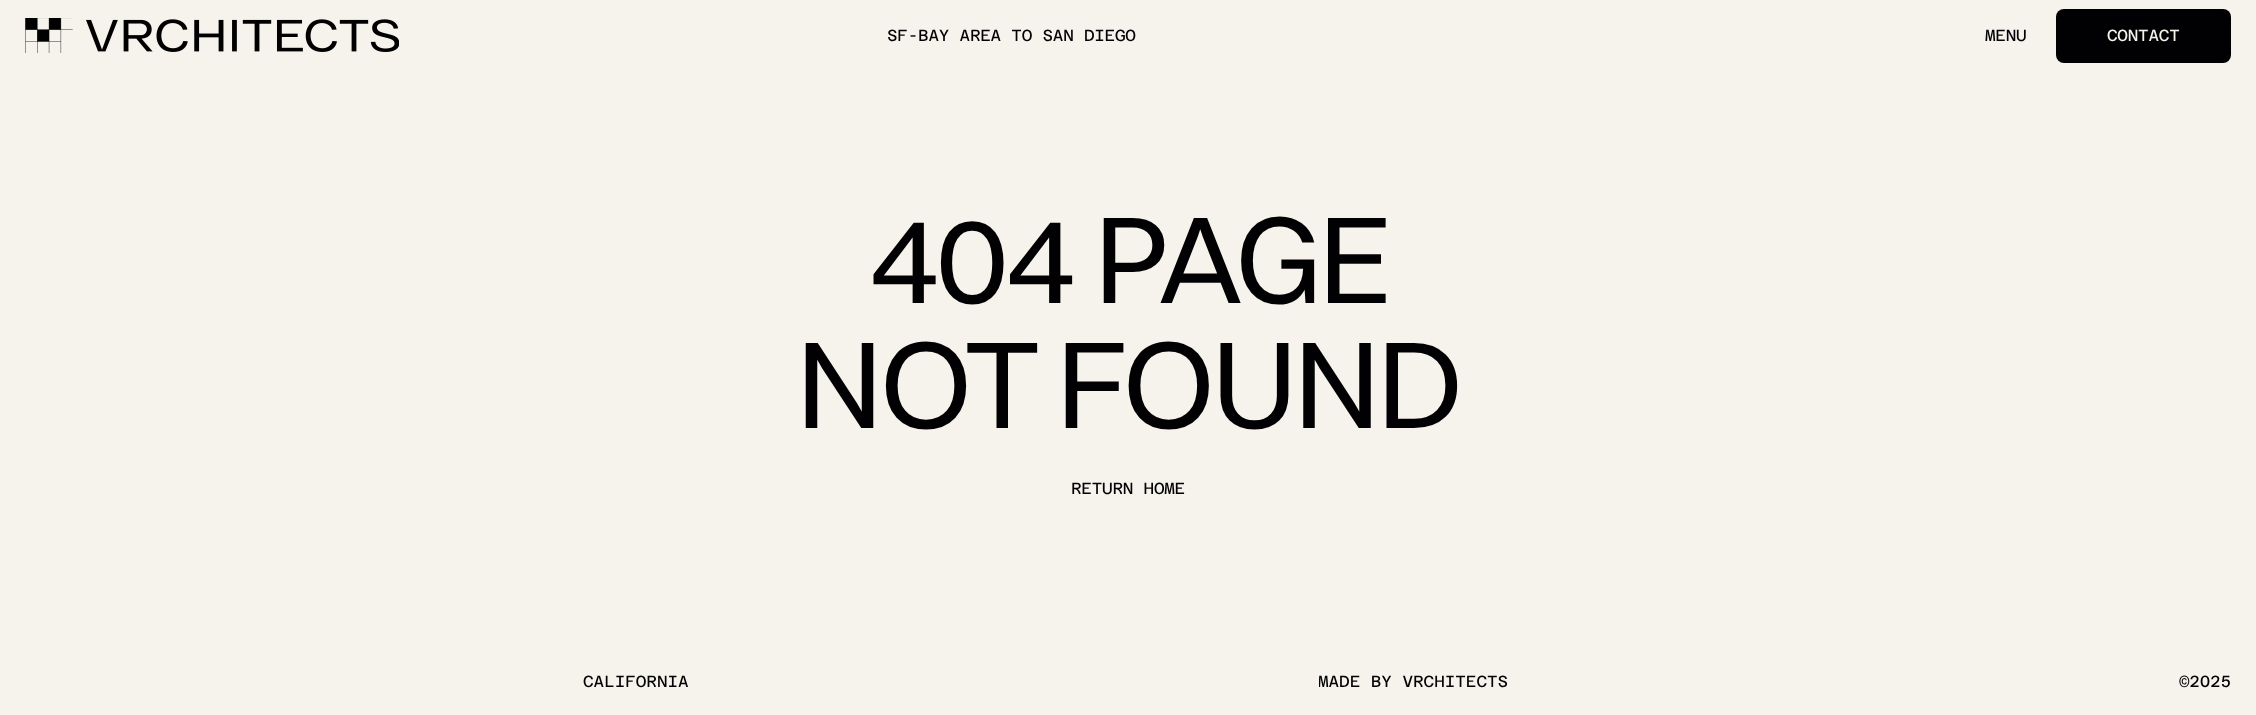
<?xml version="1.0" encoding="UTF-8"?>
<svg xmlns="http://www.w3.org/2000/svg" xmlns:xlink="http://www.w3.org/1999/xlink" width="2256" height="715">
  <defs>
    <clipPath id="clip1"><rect x="1319" y="674" width="710" height="16" /></clipPath>
  </defs>
  <rect width="100%" height="100%" fill="#f6f3ec" />
  <image x="25" y="18" width="374" height="35" xlink:href="image1.png" />
  <rect x="2056" y="9" width="175" height="54" rx="8" fill="#010103" />
  <text x="887" y="41" style="font-family: Azeret Mono; font-size: 16.25px; letter-spacing: -0.2px; fill: #010103">SF-BAY AREA TO SAN DIEGO</text>
  <text x="1985" y="41" style="font-family: Azeret Mono; font-size: 16.25px; letter-spacing: -0.2px; fill: #010103">MENU</text>
  <text x="2107" y="41" style="font-family: Azeret Mono; font-size: 16.25px; letter-spacing: -0.2px; fill: #f6f3ec">CONTACT</text>
  <text x="868" y="303" style="font-family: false; font-size: 125px; letter-spacing: -3.75px; fill: #010103">404 PAGE</text>
  <text x="796" y="428" style="font-family: false; font-size: 125px; letter-spacing: -3.75px; fill: #010103">NOT FOUND</text>
  <text x="1071" y="494" style="font-family: Azeret Mono; font-size: 16.25px; letter-spacing: -0.2px; fill: #010103">RETURN HOME</text>
  <text x="583" y="687" style="font-family: Azeret Mono; font-size: 16.25px; fill: #010103">CALIFORNIA</text>
  <g clip-path="url(#clip1)">
    <text x="1318" y="687" style="font-family: Azeret Mono; font-size: 16.25px; fill: #010103">MADE BY VRCHITECTS</text>
  </g>
  <text x="2179" y="687" style="font-family: Azeret Mono; font-size: 16.25px; letter-spacing: -0.2px; fill: #010103">©2025</text>
</svg>
